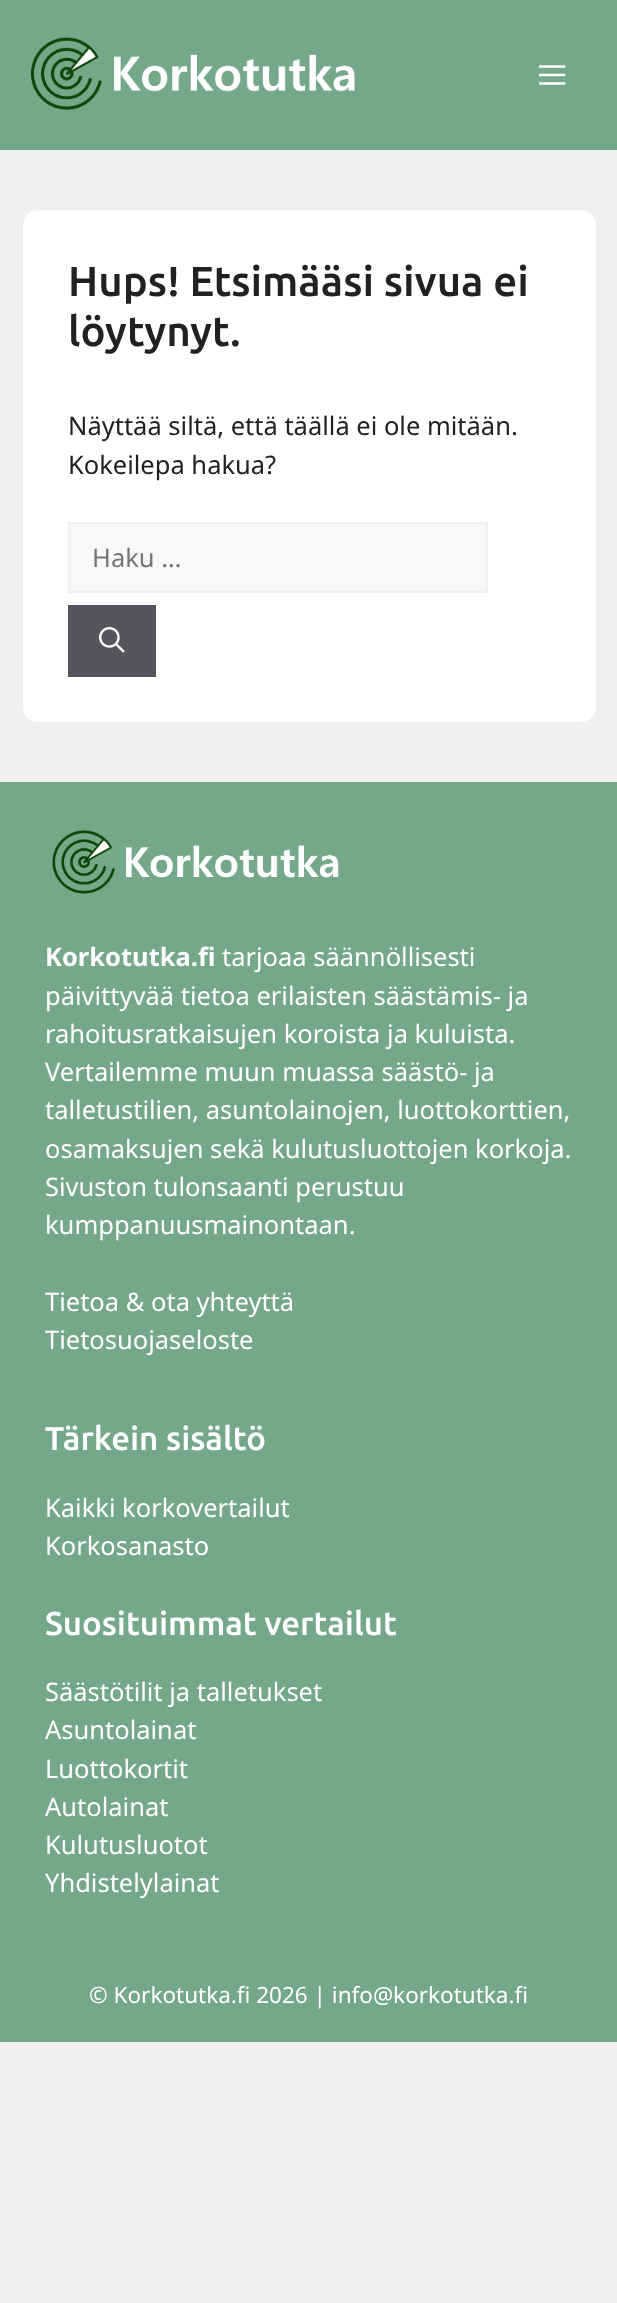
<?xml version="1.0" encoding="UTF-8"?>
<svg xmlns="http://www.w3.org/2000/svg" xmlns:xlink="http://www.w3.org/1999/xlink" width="617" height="2303">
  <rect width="100%" height="100%" fill="#f0f0f0" />
  <rect width="617" height="150" fill="#75a888" />
  <image x="30" y="37" width="325" height="73" xlink:href="image1.png" />
  <image x="539" y="65" width="27" height="20" xlink:href="image2.png" />
  <rect x="23" y="210" width="573" height="512" rx="15" fill="#ffffff" />
  <rect x="69" y="523" width="418" height="69" fill="#f7f8f9" stroke="#f0f0f0" stroke-width="2" />
  <rect x="68" y="605" width="88" height="72" fill="#55555e" />
  <image x="99" y="627" width="26" height="26" xlink:href="image3.png" />
  <rect y="782" width="617" height="1260" fill="#75a888" />
  <image x="52" y="830" width="287" height="64" xlink:href="image4.png" />
  <text x="68" y="296" style="font-family: Ubuntu; font-size: 42px; font-weight: 500; fill: #212121">Hups! Etsimääsi sivua ei</text>
  <text x="68" y="346" style="font-family: Ubuntu; font-size: 42px; font-weight: 500; fill: #212121">löytynyt.</text>
  <text x="68" y="435" style="font-family: Noto Sans; font-size: 25.5px; fill: #212121">Näyttää siltä, että täällä ei ole mitään.</text>
  <text x="68" y="474" style="font-family: Noto Sans; font-size: 25.5px; fill: #212121">Kokeilepa hakua?</text>
  <text x="92" y="567" style="font-family: Noto Sans; font-size: 25.5px; fill: #757575">Haku …</text>
  <text x="45" y="966" style="font-family: Noto Sans; font-size: 25.5px; font-weight: bold; fill: #ffffff">Korkotutka.fi</text>
  <text x="222" y="966" style="font-family: Noto Sans; font-size: 25.5px; fill: #ffffff">tarjoaa säännöllisesti</text>
  <text x="45" y="1005" style="font-family: Noto Sans; font-size: 25.5px; fill: #ffffff">päivittyvää tietoa erilaisten säästämis- ja</text>
  <text x="45" y="1043" style="font-family: Noto Sans; font-size: 25.5px; fill: #ffffff">rahoitusratkaisujen koroista ja kuluista.</text>
  <text x="45" y="1081" style="font-family: Noto Sans; font-size: 25.5px; fill: #ffffff">Vertailemme muun muassa säästö- ja</text>
  <text x="45" y="1119" style="font-family: Noto Sans; font-size: 25.5px; fill: #ffffff">talletustilien, asuntolainojen, luottokorttien,</text>
  <text x="45" y="1158" style="font-family: Noto Sans; font-size: 25.5px; fill: #ffffff">osamaksujen sekä kulutusluottojen korkoja.</text>
  <text x="45" y="1196" style="font-family: Noto Sans; font-size: 25.5px; fill: #ffffff">Sivuston tulonsaanti perustuu</text>
  <text x="45" y="1234" style="font-family: Noto Sans; font-size: 25.5px; fill: #ffffff">kumppanuusmainontaan.</text>
  <text x="45" y="1311" style="font-family: Noto Sans; font-size: 25.5px; fill: #ffffff">Tietoa &amp; ota yhteyttä</text>
  <text x="45" y="1349" style="font-family: Noto Sans; font-size: 25.5px; fill: #ffffff">Tietosuojaseloste</text>
  <text x="45" y="1450" style="font-family: Ubuntu; font-size: 33px; font-weight: 500; fill: #ffffff">Tärkein sisältö</text>
  <text x="45" y="1517" style="font-family: Noto Sans; font-size: 25.5px; fill: #ffffff">Kaikki korkovertailut</text>
  <text x="45" y="1555" style="font-family: Noto Sans; font-size: 25.5px; fill: #ffffff">Korkosanasto</text>
  <text x="45" y="1635" style="font-family: Ubuntu; font-size: 33px; font-weight: 500; fill: #ffffff">Suosituimmat vertailut</text>
  <text x="45" y="1701" style="font-family: Noto Sans; font-size: 25.5px; fill: #ffffff">Säästötilit ja talletukset</text>
  <text x="45" y="1739" style="font-family: Noto Sans; font-size: 25.5px; fill: #ffffff">Asuntolainat</text>
  <text x="45" y="1778" style="font-family: Noto Sans; font-size: 25.5px; fill: #ffffff">Luottokortit</text>
  <text x="45" y="1816" style="font-family: Noto Sans; font-size: 25.5px; fill: #ffffff">Autolainat</text>
  <text x="45" y="1854" style="font-family: Noto Sans; font-size: 25.5px; fill: #ffffff">Kulutusluotot</text>
  <text x="45" y="1892" style="font-family: Noto Sans; font-size: 25.5px; fill: #ffffff">Yhdistelylainat</text>
  <text x="89" y="2003" style="font-family: Noto Sans; font-size: 22.5px; fill: #ffffff">© Korkotutka.fi 2026 | info@korkotutka.fi</text>
</svg>
